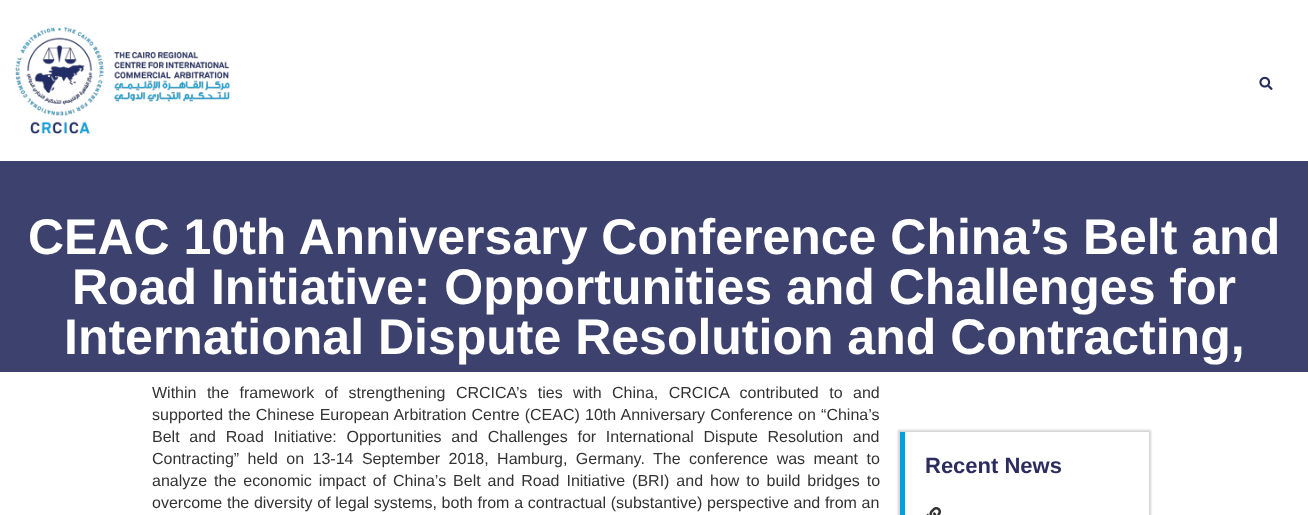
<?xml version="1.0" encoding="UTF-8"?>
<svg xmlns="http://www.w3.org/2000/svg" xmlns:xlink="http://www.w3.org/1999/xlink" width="1308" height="515">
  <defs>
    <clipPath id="clip1"><path d="M 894 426 h 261 v 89 h -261 z m 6 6 h 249 v 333 h -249 z" clip-rule="evenodd" /></clipPath>
  </defs>
  <rect width="100%" height="100%" fill="#ffffff" />
  <image x="15" y="27" width="215" height="107" xlink:href="image1.png" />
  <image x="1259" y="76" width="14" height="14" xlink:href="image2.png" />
  <rect y="161" width="1308" height="211" fill="#3c416d" />
  <g clip-path="url(#clip1)">
    <rect x="898" y="430" width="253" height="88" fill="#d3d3d3" filter="blur(1px)" />
  </g>
  <path d="M 900 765 v -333 h 5 v 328 z" fill="#00a3e0" />
  <image x="926" y="507" width="15" height="8" xlink:href="image3.png" />
  <text x="28" y="254" style="font-family: Liberation Sans; font-size: 50px; font-weight: bold; fill: #ffffff">CEAC 10th Anniversary Conference China’s Belt and</text>
  <text x="72" y="304" style="font-family: Liberation Sans; font-size: 50px; font-weight: bold; fill: #ffffff">Road Initiative: Opportunities and Challenges for</text>
  <text x="64" y="354" style="font-family: Liberation Sans; font-size: 50px; font-weight: bold; fill: #ffffff">International Dispute Resolution and Contracting,</text>
  <text x="152" y="398" word-spacing="6" style="font-family: Liberation Sans; font-size: 16px; fill: #333333">Within the framework of strengthening CRCICA’s ties with China, CRCICA contributed to and</text>
  <text x="152" y="420" word-spacing="0.75" style="font-family: Liberation Sans; font-size: 16px; fill: #333333">supported the Chinese European Arbitration Centre (CEAC) 10th Anniversary Conference on “China’s</text>
  <text x="152" y="442" word-spacing="5.25" style="font-family: Liberation Sans; font-size: 16px; fill: #333333">Belt and Road Initiative: Opportunities and Challenges for International Dispute Resolution and</text>
  <text x="152" y="464" word-spacing="4" style="font-family: Liberation Sans; font-size: 16px; fill: #333333">Contracting” held on 13-14 September 2018, Hamburg, Germany. The conference was meant to</text>
  <text x="152" y="486" word-spacing="2.5" style="font-family: Liberation Sans; font-size: 16px; fill: #333333">analyze the economic impact of China’s Belt and Road Initiative (BRI) and how to build bridges to</text>
  <text x="152" y="508" word-spacing="0.25" style="font-family: Liberation Sans; font-size: 16px; fill: #333333">overcome the diversity of legal systems, both from a contractual (substantive) perspective and from an</text>
  <text x="925" y="473" style="font-family: Liberation Sans; font-size: 22px; font-weight: bold; fill: #2c2c5f">Recent News</text>
</svg>
